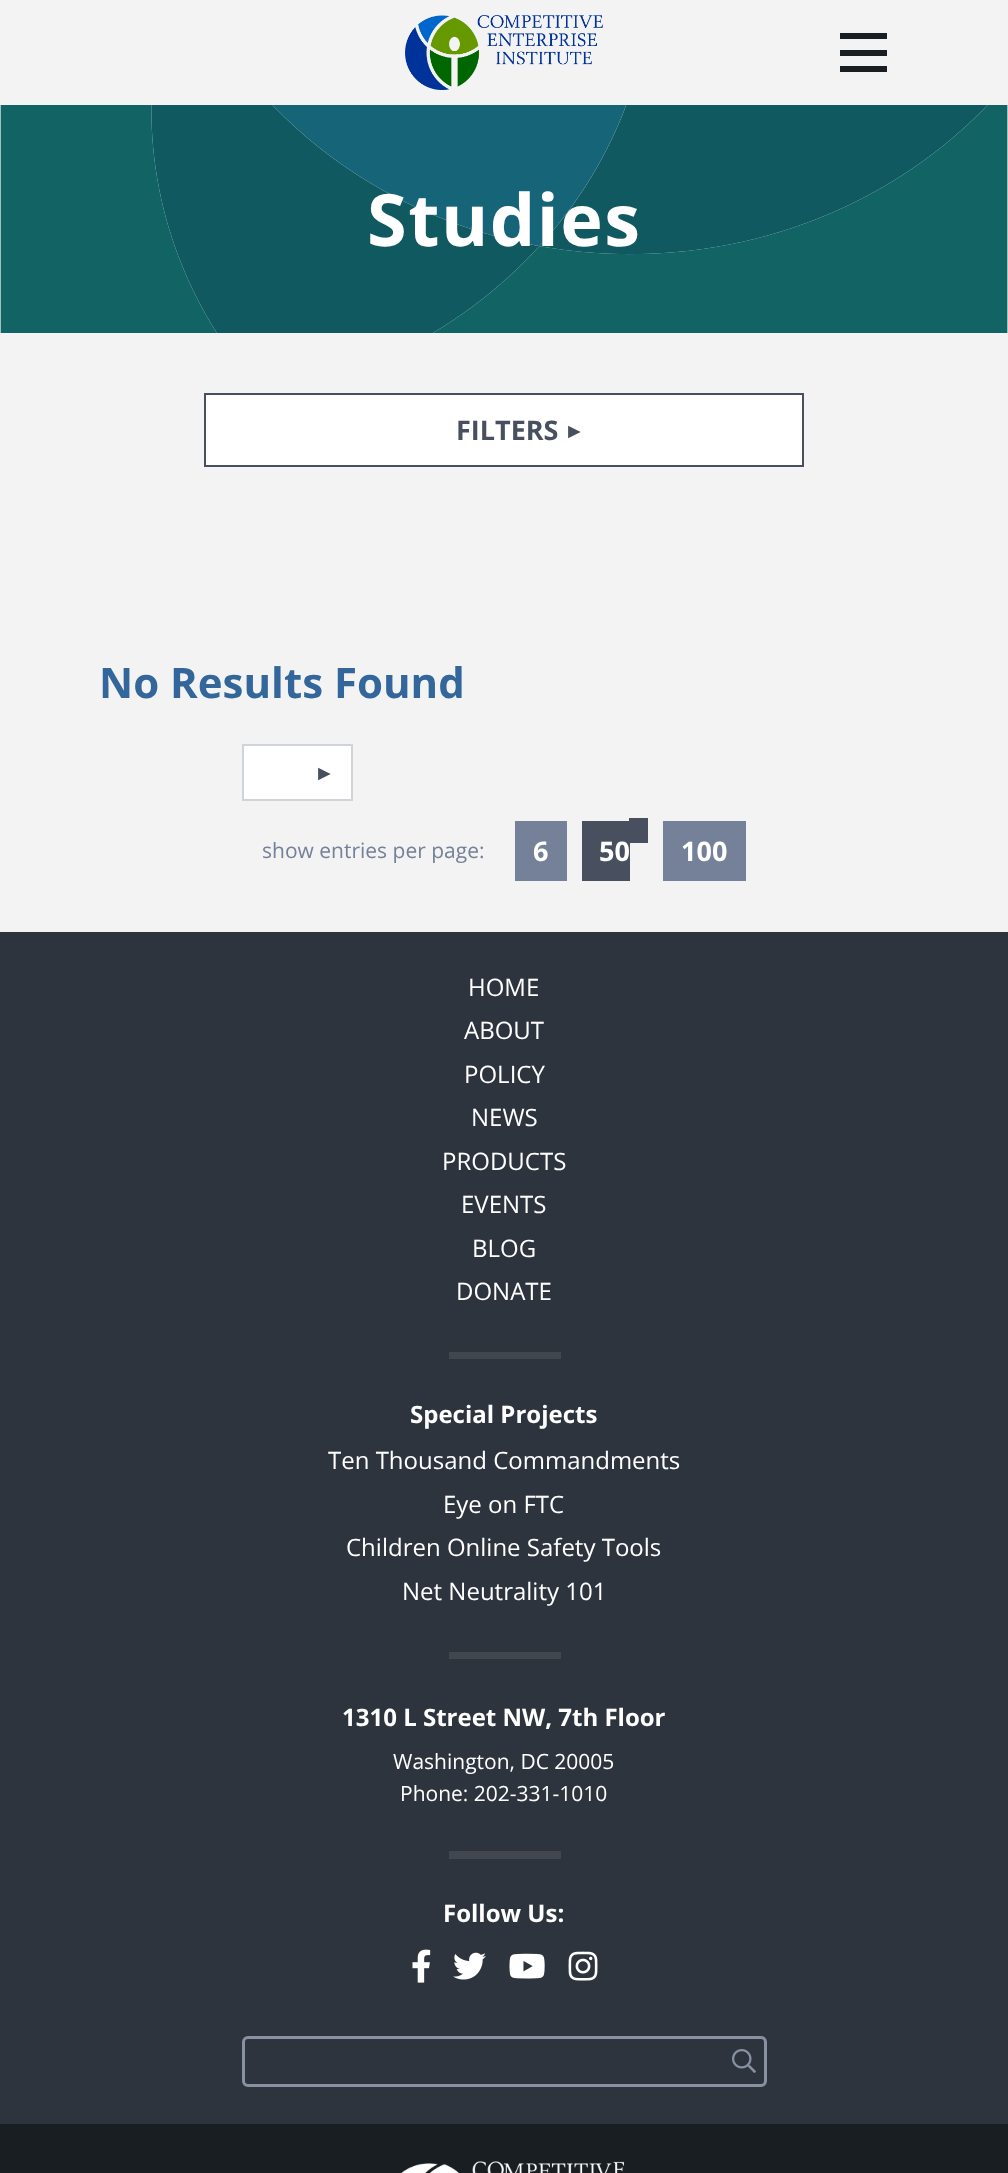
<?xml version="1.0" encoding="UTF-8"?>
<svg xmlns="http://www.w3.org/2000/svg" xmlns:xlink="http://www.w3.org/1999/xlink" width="1008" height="2173">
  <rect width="100%" height="100%" fill="#f3f3f3" />
  <image x="405" y="15" width="198" height="75" xlink:href="image1.png" />
  <rect x="840" y="33" width="47" height="6" fill="#191e22" />
  <rect x="840" y="50" width="47" height="6" fill="#191e22" />
  <rect x="840" y="66" width="47" height="6" fill="#191e22" />
  <image x="0" y="105" width="1008" height="228" xlink:href="image2.png" />
  <rect x="205" y="394" width="598" height="72" fill="#ffffff" stroke="#48505f" stroke-width="2" />
  <rect x="244" y="746" width="107" height="53" fill="#ffffff" />
  <rect x="243" y="745" width="109" height="55" fill="none" stroke="#ced4da" stroke-width="2" />
  <rect x="515" y="821" width="52" height="60" fill="#758199" />
  <rect x="582" y="821" width="48" height="60" fill="#48505f" />
  <rect x="629" y="818" width="19" height="25" fill="#48505f" />
  <rect x="663" y="821" width="83" height="60" fill="#758199" />
  <rect y="932" width="1008" height="1192" fill="#2e343e" />
  <rect x="449" y="1352" width="112" height="7" fill="#41464f" />
  <rect x="449" y="1652" width="112" height="7" fill="#41464f" />
  <rect x="449" y="1851" width="112" height="8" fill="#41464f" />
  <image x="412" y="1949" width="19" height="34" xlink:href="image3.png" />
  <image x="453" y="1952" width="33" height="28" xlink:href="image4.png" />
  <image x="509" y="1953" width="36" height="26" xlink:href="image5.png" />
  <image x="568" y="1951" width="30" height="30" xlink:href="image6.png" />
  <rect x="243.5" y="2037.5" width="522" height="48" rx="4.5" fill="none" stroke="#8691a2" stroke-width="3" />
  <image x="732" y="2049" width="24" height="24" xlink:href="image7.png" />
  <rect y="2124" width="1008" height="49" fill="#191e22" />
  <image x="401" y="2161" width="224" height="12" xlink:href="image8.png" />
  <text x="367" y="246" style="font-family: Open Sans; font-size: 72px; font-weight: bold; letter-spacing: 1.5px; fill: #ffffff">Studies</text>
  <text x="456" y="440" style="font-family: Open Sans; font-size: 27px; font-weight: bold; fill: #48505f">FILTERS</text>
  <text x="564" y="438" style="font-family: Liberation Sans; font-size: 21px; font-weight: bold; fill: #48505f">►</text>
  <text x="99" y="698" style="font-family: Open Sans; font-size: 42px; font-weight: bold; fill: #33669a">No Results Found</text>
  <text x="314" y="780" style="font-family: Liberation Serif; font-size: 21px; fill: #48505f">►</text>
  <text x="262" y="858" style="font-family: Open Sans; font-size: 21px; fill: #758199">show entries per page:</text>
  <text x="533" y="861" style="font-family: Open Sans; font-size: 27px; font-weight: bold; fill: #ffffff">6</text>
  <text x="599" y="861" style="font-family: Open Sans; font-size: 27px; font-weight: bold; fill: #ffffff">50</text>
  <text x="681" y="861" style="font-family: Open Sans; font-size: 27px; font-weight: bold; fill: #ffffff">100</text>
  <text x="468" y="996" style="font-family: Open Sans; font-size: 24px; fill: #ffffff">HOME</text>
  <text x="464" y="1039" style="font-family: Open Sans; font-size: 24px; fill: #ffffff">ABOUT</text>
  <text x="464" y="1083" style="font-family: Open Sans; font-size: 24px; fill: #ffffff">POLICY</text>
  <text x="471" y="1126" style="font-family: Open Sans; font-size: 24px; fill: #ffffff">NEWS</text>
  <text x="442" y="1170" style="font-family: Open Sans; font-size: 24px; fill: #ffffff">PRODUCTS</text>
  <text x="461" y="1213" style="font-family: Open Sans; font-size: 24px; fill: #ffffff">EVENTS</text>
  <text x="472" y="1257" style="font-family: Open Sans; font-size: 24px; fill: #ffffff">BLOG</text>
  <text x="456" y="1300" style="font-family: Open Sans; font-size: 24px; fill: #ffffff">DONATE</text>
  <text x="410" y="1423" style="font-family: Open Sans; font-size: 24px; font-weight: bold; fill: #ffffff">Special Projects</text>
  <text x="328" y="1469" style="font-family: Open Sans; font-size: 24px; fill: #ffffff">Ten Thousand Commandments</text>
  <text x="443" y="1513" style="font-family: Open Sans; font-size: 24px; fill: #ffffff">Eye on FTC</text>
  <text x="346" y="1556" style="font-family: Open Sans; font-size: 24px; fill: #ffffff">Children Online Safety Tools</text>
  <text x="402" y="1600" style="font-family: Open Sans; font-size: 24px; fill: #ffffff">Net Neutrality 101</text>
  <text x="342" y="1726" style="font-family: Open Sans; font-size: 24px; font-weight: bold; fill: #ffffff">1310 L Street NW, 7th Floor</text>
  <text x="393" y="1769" style="font-family: Open Sans; font-size: 21px; fill: #ffffff">Washington, DC 20005</text>
  <text x="400" y="1801" style="font-family: Open Sans; font-size: 21px; fill: #ffffff">Phone: 202-331-1010</text>
  <text x="443" y="1922" style="font-family: Open Sans; font-size: 24px; font-weight: bold; fill: #ffffff">Follow Us:</text>
</svg>
